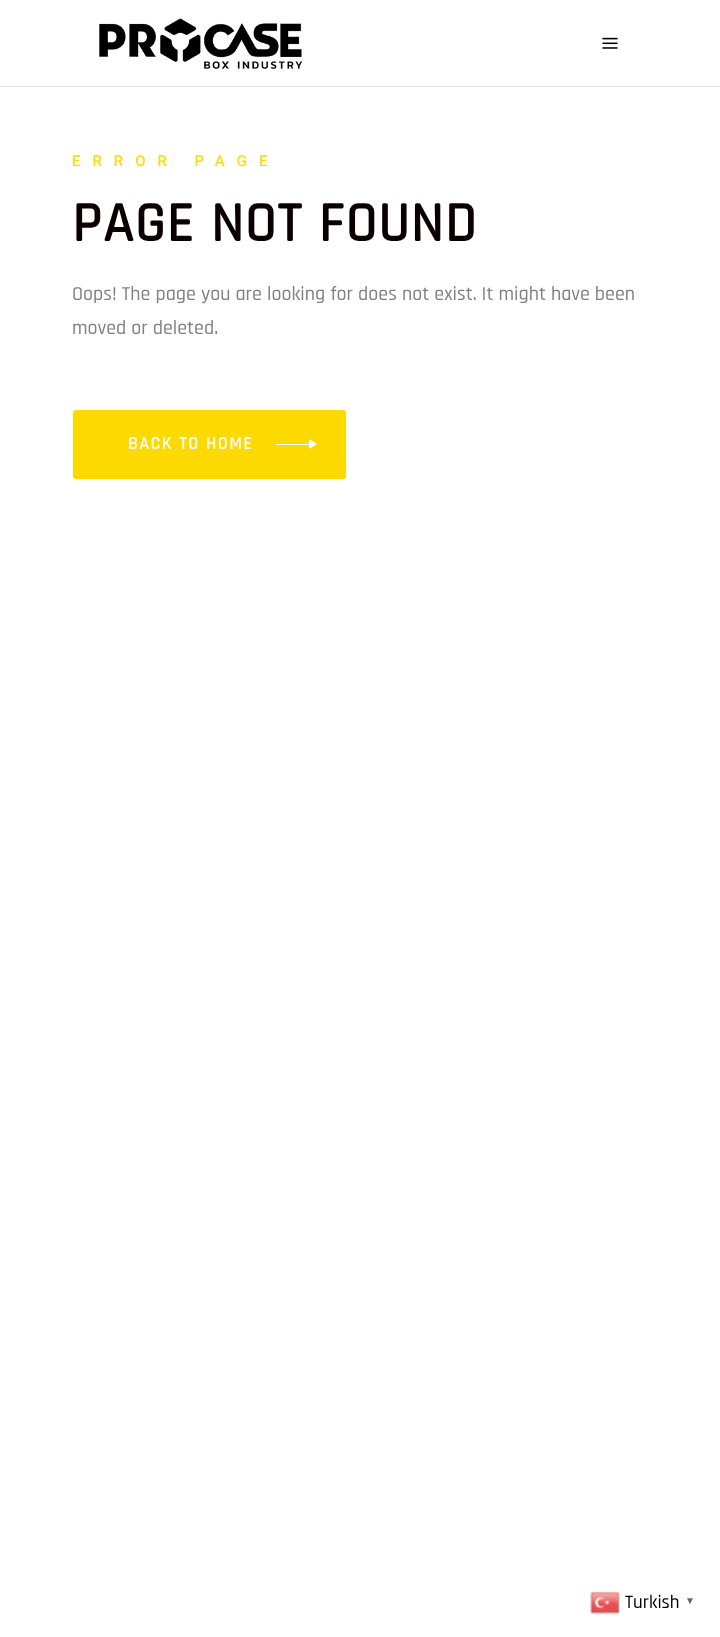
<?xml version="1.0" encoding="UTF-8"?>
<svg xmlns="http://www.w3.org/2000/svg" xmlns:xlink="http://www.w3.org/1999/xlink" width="720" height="1637">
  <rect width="100%" height="100%" fill="#ffffff" />
  <rect y="86" width="720" height="1" fill="#e5e5e5" />
  <image x="99" y="18" width="203" height="51" xlink:href="image1.png" />
  <image x="602" y="37" width="16" height="12" xlink:href="image2.png" />
  <rect x="73.5" y="410.5" width="272" height="68" rx="2" fill="#fcda00" stroke="#fcda00" />
  <rect x="276" y="444" width="33" height="1" fill="#ffffff" />
  <path d="M 309 439 l 8 5 l -8 5 z" fill="#ffffff" />
  <image x="590" y="1591" width="30" height="24" xlink:href="image3.png" />
  <text x="72" y="166" style="font-family: Heebo; font-size: 15px; font-weight: 500; letter-spacing: 12px; fill: #fcda00">ERROR PAGE</text>
  <text x="72" y="241" style="font-family: Rajdhani; font-size: 56.25px; font-weight: bold; letter-spacing: 1.4px; fill: #0a0000">PAGE NOT FOUND</text>
  <text x="72" y="300" style="font-family: Rajdhani; font-size: 20px; font-weight: 500; fill: #808080">Oops! The page you are looking for does not exist. It might have been</text>
  <text x="72" y="334" style="font-family: Rajdhani; font-size: 20px; font-weight: 500; fill: #808080">moved or deleted.</text>
  <text x="128" y="449" style="font-family: Rajdhani; font-size: 17.5px; font-weight: bold; letter-spacing: 1.75px; fill: #ffffff">BACK TO HOME</text>
  <text x="625" y="1608" style="font-family: Rajdhani; font-size: 19px; font-weight: 500; fill: #000000">Turkish</text>
  <text x="685" y="1604" style="font-family: Liberation Serif; font-size: 10px; font-weight: bold; fill: #666666">▼</text>
</svg>
